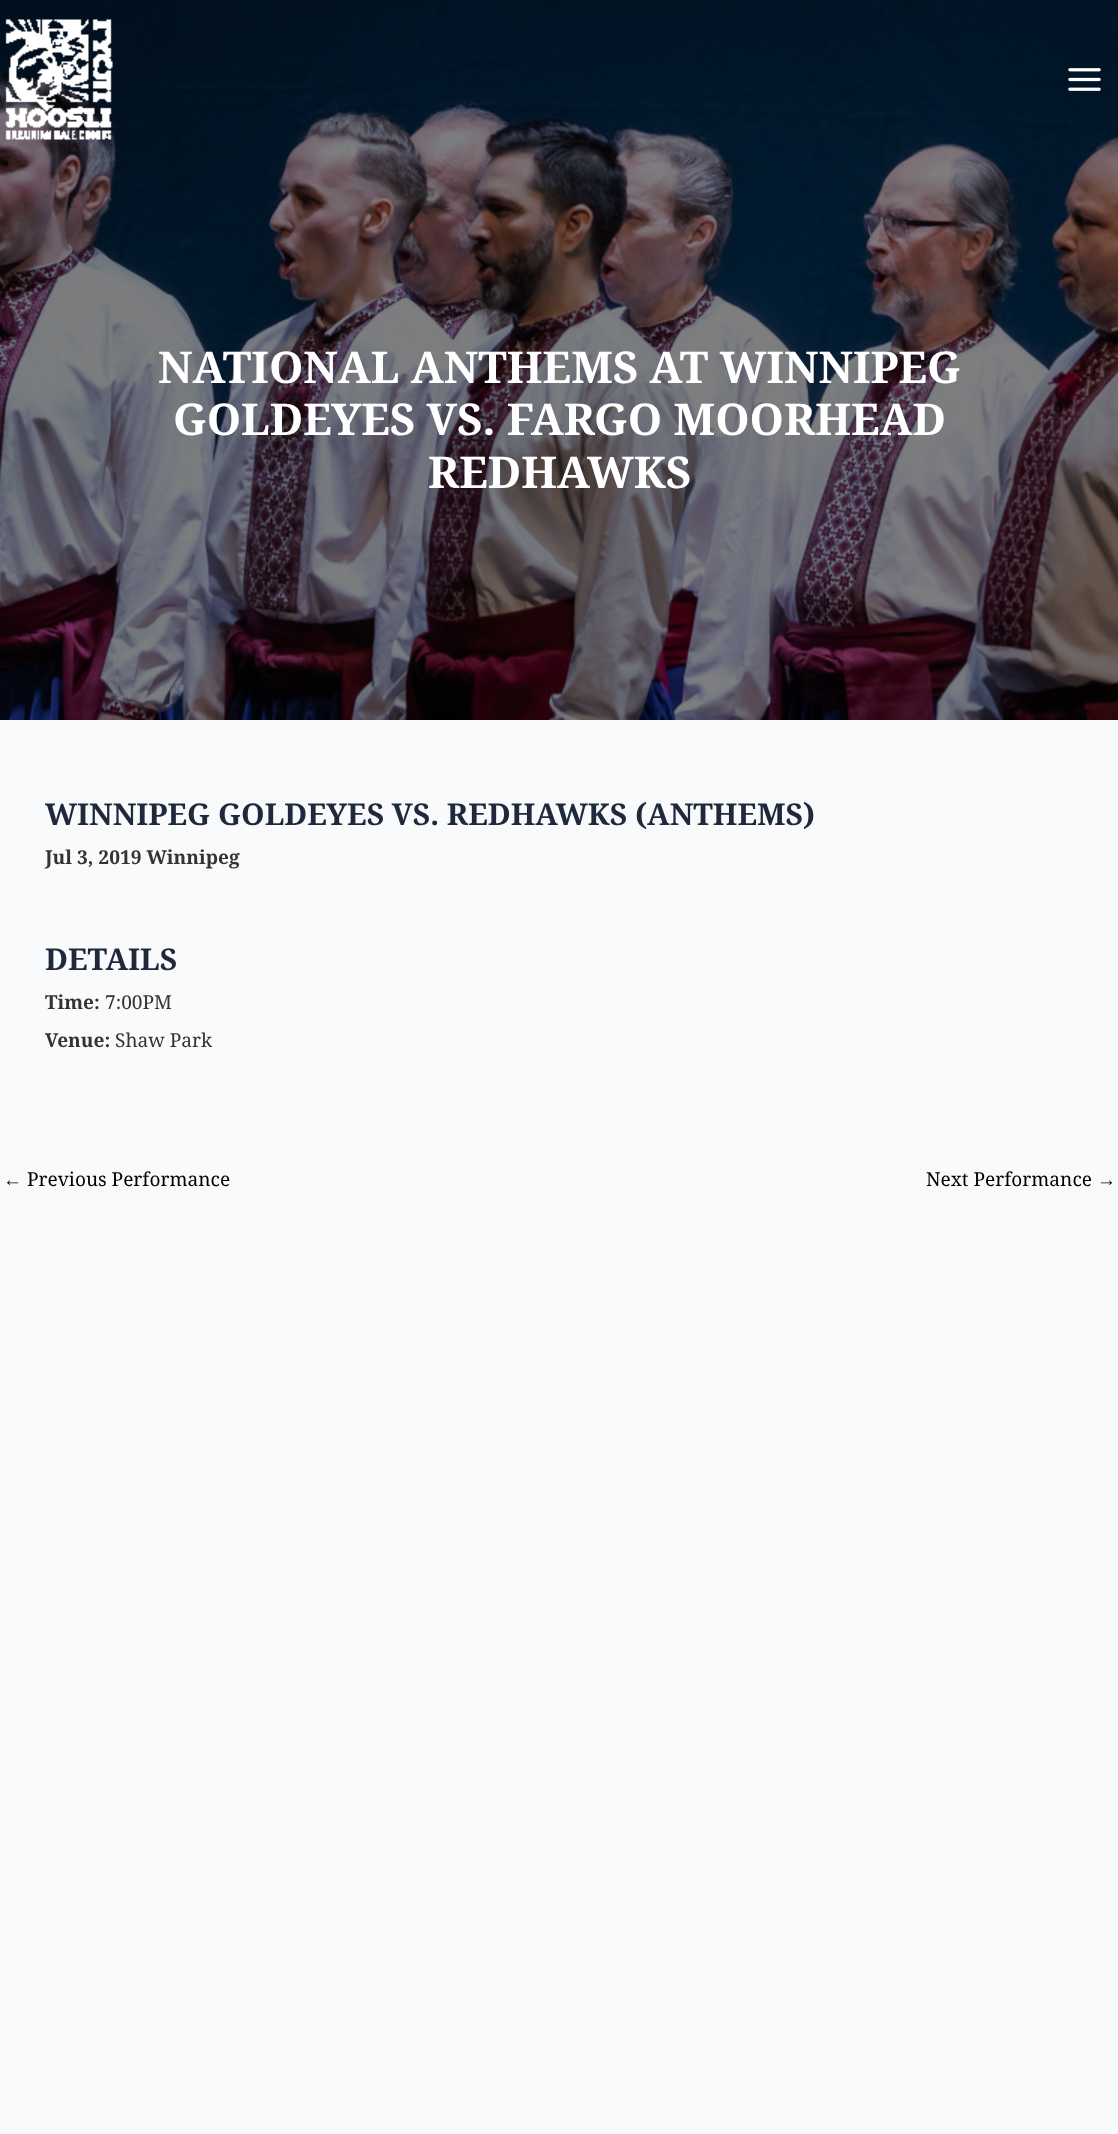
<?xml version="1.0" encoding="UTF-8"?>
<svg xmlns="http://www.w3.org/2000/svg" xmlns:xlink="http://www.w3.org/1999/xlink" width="1118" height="2134">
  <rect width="100%" height="100%" fill="#f9fafb" />
  <image x="0" y="0" width="1118" height="720" xlink:href="image3.png" />
  <image x="5" y="19" width="108" height="121" xlink:href="image1.png" />
  <image x="1068" y="68" width="33" height="23" xlink:href="image2.png" />
  <text x="158" y="383" style="font-family: Noto Serif; font-size: 43.75px; font-weight: bold; fill: #ffffff">NATIONAL ANTHEMS AT WINNIPEG</text>
  <text x="173" y="435" style="font-family: Noto Serif; font-size: 43.75px; font-weight: bold; fill: #ffffff">GOLDEYES VS. FARGO MOORHEAD</text>
  <text x="428" y="488" style="font-family: Noto Serif; font-size: 43.75px; font-weight: bold; fill: #ffffff">REDHAWKS</text>
  <text x="45" y="825" style="font-family: Noto Serif; font-size: 30px; font-weight: bold; fill: #1e293b">WINNIPEG GOLDEYES VS. REDHAWKS (ANTHEMS)</text>
  <text x="45" y="864" style="font-family: Noto Serif; font-size: 19.1px; font-weight: bold; fill: #333333">Jul 3, 2019 Winnipeg</text>
  <text x="45" y="970" style="font-family: Noto Serif; font-size: 30px; font-weight: bold; fill: #1e293b">DETAILS</text>
  <text x="45" y="1009" style="font-family: Noto Serif; font-size: 19.1px; font-weight: bold; fill: #333333">Time:</text>
  <text x="105" y="1009" style="font-family: Noto Serif; font-size: 19.1px; fill: #333333">7:00PM</text>
  <text x="45" y="1047" style="font-family: Noto Serif; font-size: 19.1px; font-weight: bold; fill: #333333">Venue:</text>
  <text x="115" y="1047" style="font-family: Noto Serif; font-size: 19.1px; fill: #333333">Shaw Park</text>
  <text x="3" y="1186" style="font-family: Liberation Serif; font-size: 19.1px; fill: #000000">←</text>
  <text x="27" y="1186" style="font-family: Noto Serif; font-size: 19.1px; fill: #000000">Previous Performance</text>
  <text x="926" y="1186" style="font-family: Noto Serif; font-size: 19.1px; fill: #000000">Next Performance</text>
  <text x="1097" y="1186" style="font-family: Liberation Serif; font-size: 19.1px; fill: #000000">→</text>
</svg>
